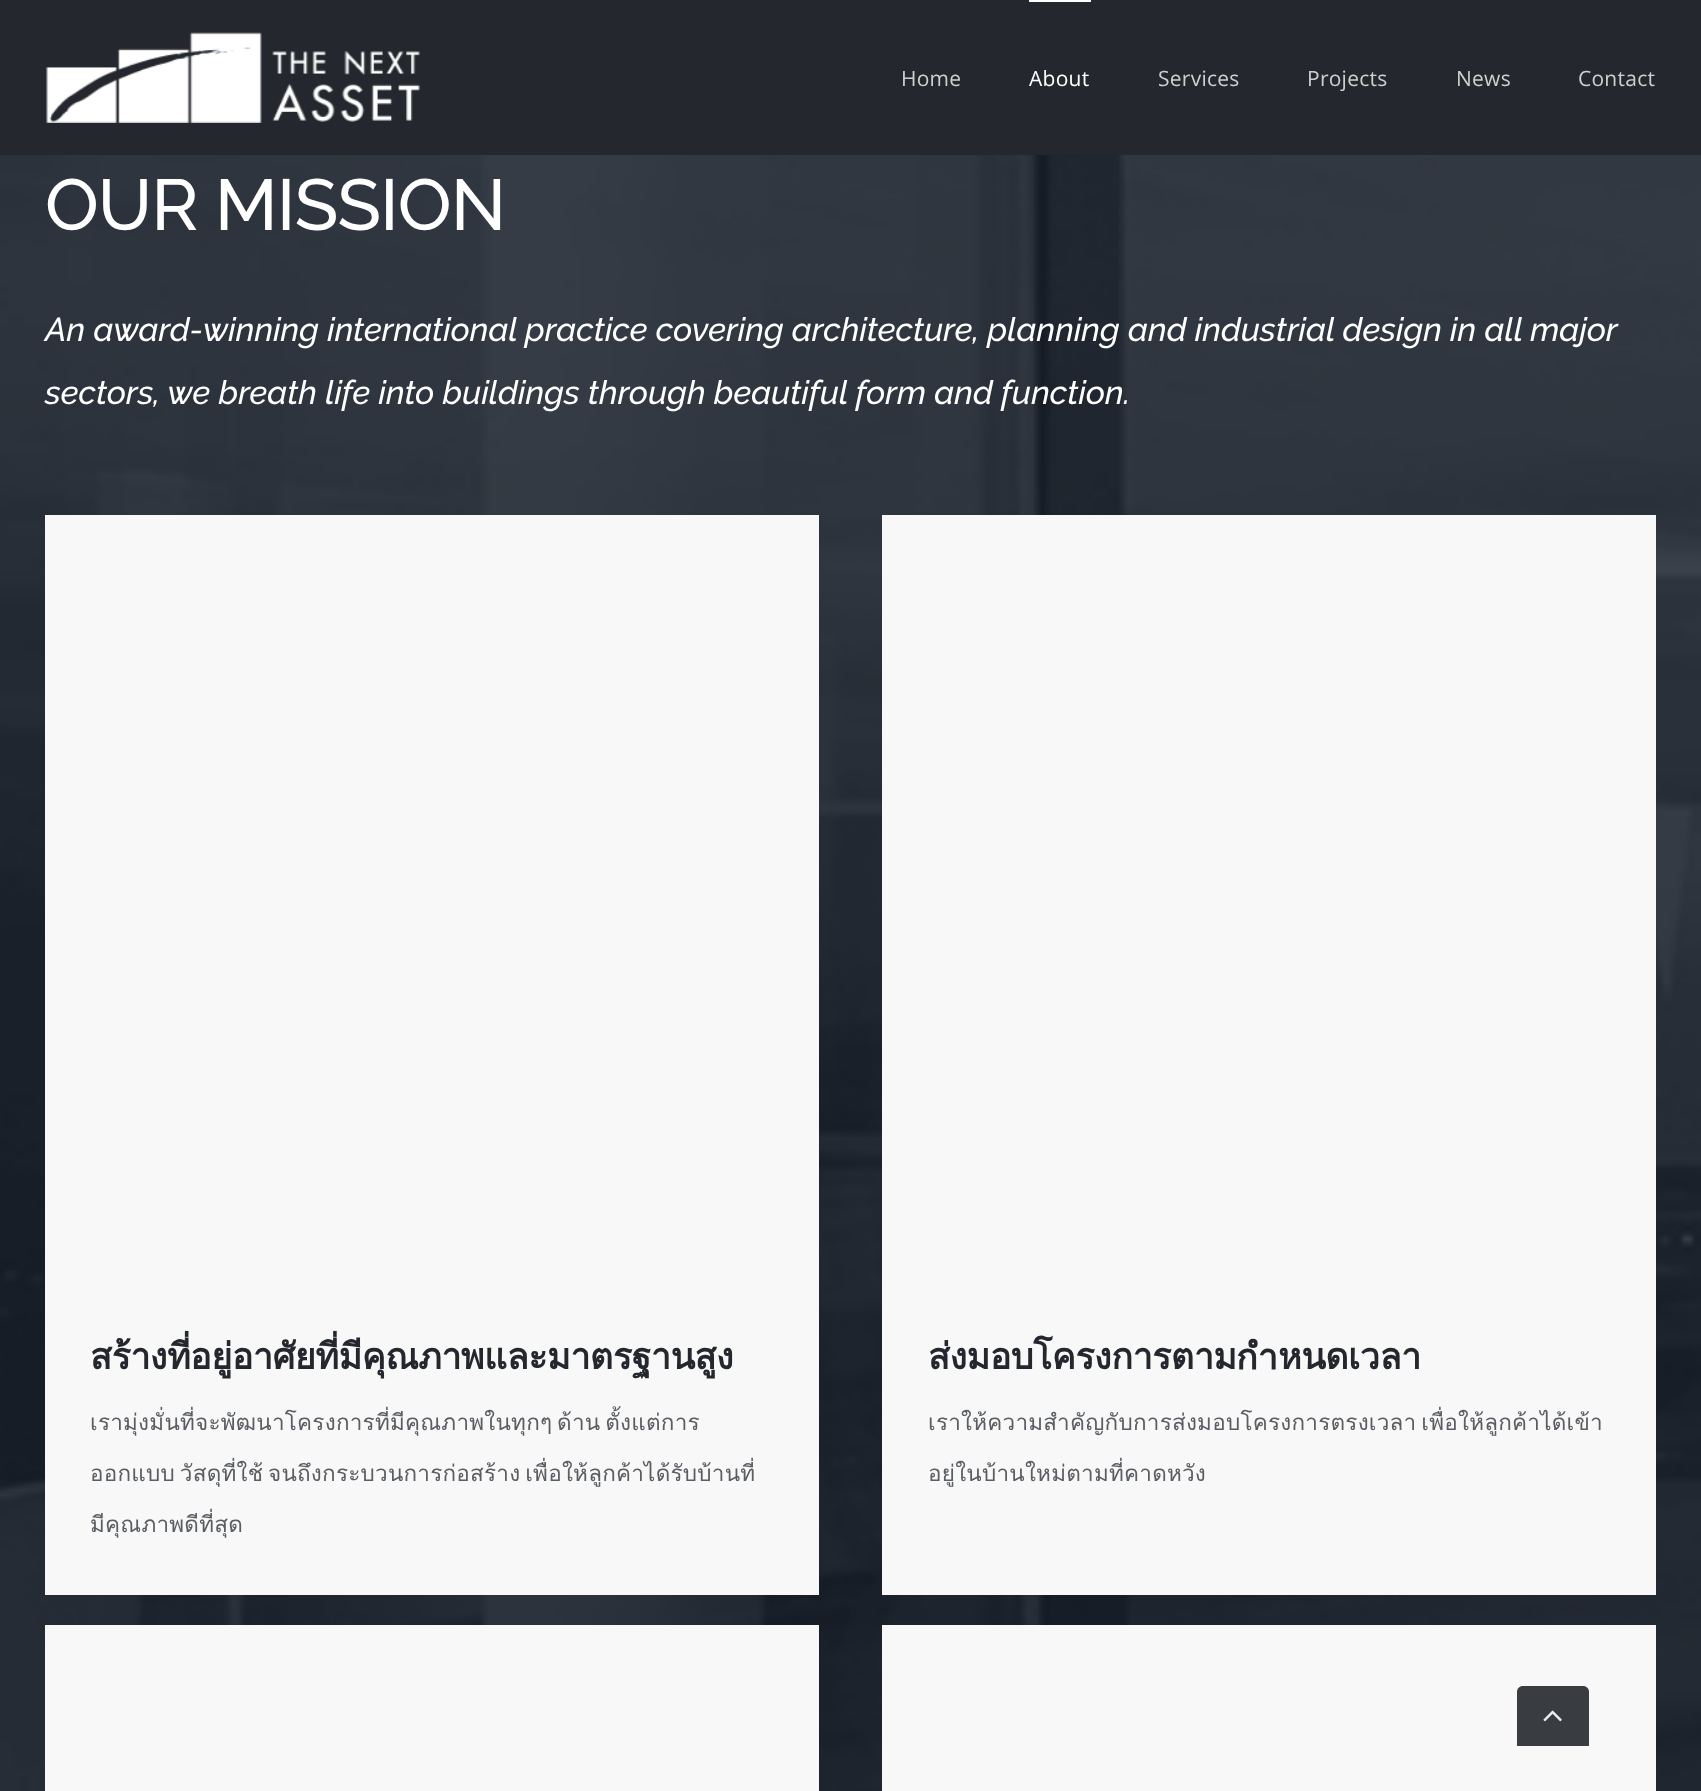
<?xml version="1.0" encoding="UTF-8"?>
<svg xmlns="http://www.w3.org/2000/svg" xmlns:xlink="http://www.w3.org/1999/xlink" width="1701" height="1791">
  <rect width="100%" height="100%" fill="#ffffff" />
  <rect width="1701" height="155" fill="#24272d" />
  <image x="46" y="32" width="374" height="91" xlink:href="image1.png" />
  <rect x="1029" width="62" height="2" fill="#ffffff" />
  <image x="0" y="155" width="1701" height="1636" xlink:href="image2.png" />
  <rect x="45" y="515" width="774" height="1080" fill="#f8f8f8" />
  <rect x="882" y="515" width="774" height="1080" fill="#f8f8f8" />
  <rect x="45" y="1625" width="774" height="166" fill="#f8f8f8" />
  <rect x="882" y="1625" width="774" height="166" fill="#f8f8f8" />
  <path d="M 1523 1686 h 60 c 3.5 0 6 2.5 6 6 v 54 h -72 v -54 c 0 -3.5 2.5 -6 6 -6 z" fill="#393c41" />
  <image x="1543" y="1710" width="19" height="12" xlink:href="image3.png" />
  <text x="901" y="86" style="font-family: Open Sans; font-size: 21px; letter-spacing: 0.25px; fill: #cfcfcf">Home</text>
  <text x="1029" y="86" style="font-family: Open Sans; font-size: 21px; letter-spacing: 0.25px; fill: #ffffff">About</text>
  <text x="1158" y="86" style="font-family: Open Sans; font-size: 21px; letter-spacing: 0.25px; fill: #cfcfcf">Services</text>
  <text x="1307" y="86" style="font-family: Open Sans; font-size: 21px; letter-spacing: 0.25px; fill: #cfcfcf">Projects</text>
  <text x="1456" y="86" style="font-family: Open Sans; font-size: 21px; letter-spacing: 0.25px; fill: #cfcfcf">News</text>
  <text x="1578" y="86" style="font-family: Open Sans; font-size: 21px; letter-spacing: 0.25px; fill: #cfcfcf">Contact</text>
  <text x="45" y="230" style="font-family: Raleway; font-size: 72px; font-weight: 100; letter-spacing: -1px; fill: #ffffff">OUR MISSION</text>
  <text x="45" y="341" style="font-family: Raleway; font-size: 33px; font-weight: 100; font-style: italic; fill: #ffffff">An award-winning international practice covering architecture, planning and industrial design in all major</text>
  <text x="45" y="404" style="font-family: Raleway; font-size: 33px; font-weight: 100; font-style: italic; fill: #ffffff">sectors, we breath life into buildings through beautiful form and function.</text>
  <text x="90" y="1369" style="font-family: Loma; font-size: 36px; font-weight: bold; letter-spacing: -0.55px; fill: #24272d">สร้างที่อยู่อาศัยที่มีคุณภาพและมาตรฐานสูง</text>
  <text x="90" y="1430" word-spacing="-3" style="font-family: Loma; font-size: 22.5px; letter-spacing: 0.22px; fill: #5a5d62">เรามุ่งมั่นที่จะพัฒนาโครงการที่มีคุณภาพในทุกๆ ด้าน ตั้งแต่การ</text>
  <text x="90" y="1481" word-spacing="-3" style="font-family: Loma; font-size: 22.5px; letter-spacing: 0.22px; fill: #5a5d62">ออกแบบ วัสดุที่ใช้ จนถึงกระบวนการก่อสร้าง เพื่อให้ลูกค้าได้รับบ้านที่</text>
  <text x="90" y="1532" style="font-family: Loma; font-size: 22.5px; letter-spacing: 0.22px; fill: #5a5d62">มีคุณภาพดีที่สุด</text>
  <text x="928" y="1369" style="font-family: Loma; font-size: 36px; font-weight: bold; letter-spacing: -0.55px; fill: #24272d">ส่งมอบโครงการตามกำหนดเวลา</text>
  <text x="928" y="1430" word-spacing="-3" style="font-family: Loma; font-size: 22.5px; letter-spacing: 0.22px; fill: #5a5d62">เราให้ความสำคัญกับการส่งมอบโครงการตรงเวลา เพื่อให้ลูกค้าได้เข้า</text>
  <text x="928" y="1481" style="font-family: Loma; font-size: 22.5px; letter-spacing: 0.22px; fill: #5a5d62">อยู่ในบ้านใหม่ตามที่คาดหวัง</text>
</svg>
